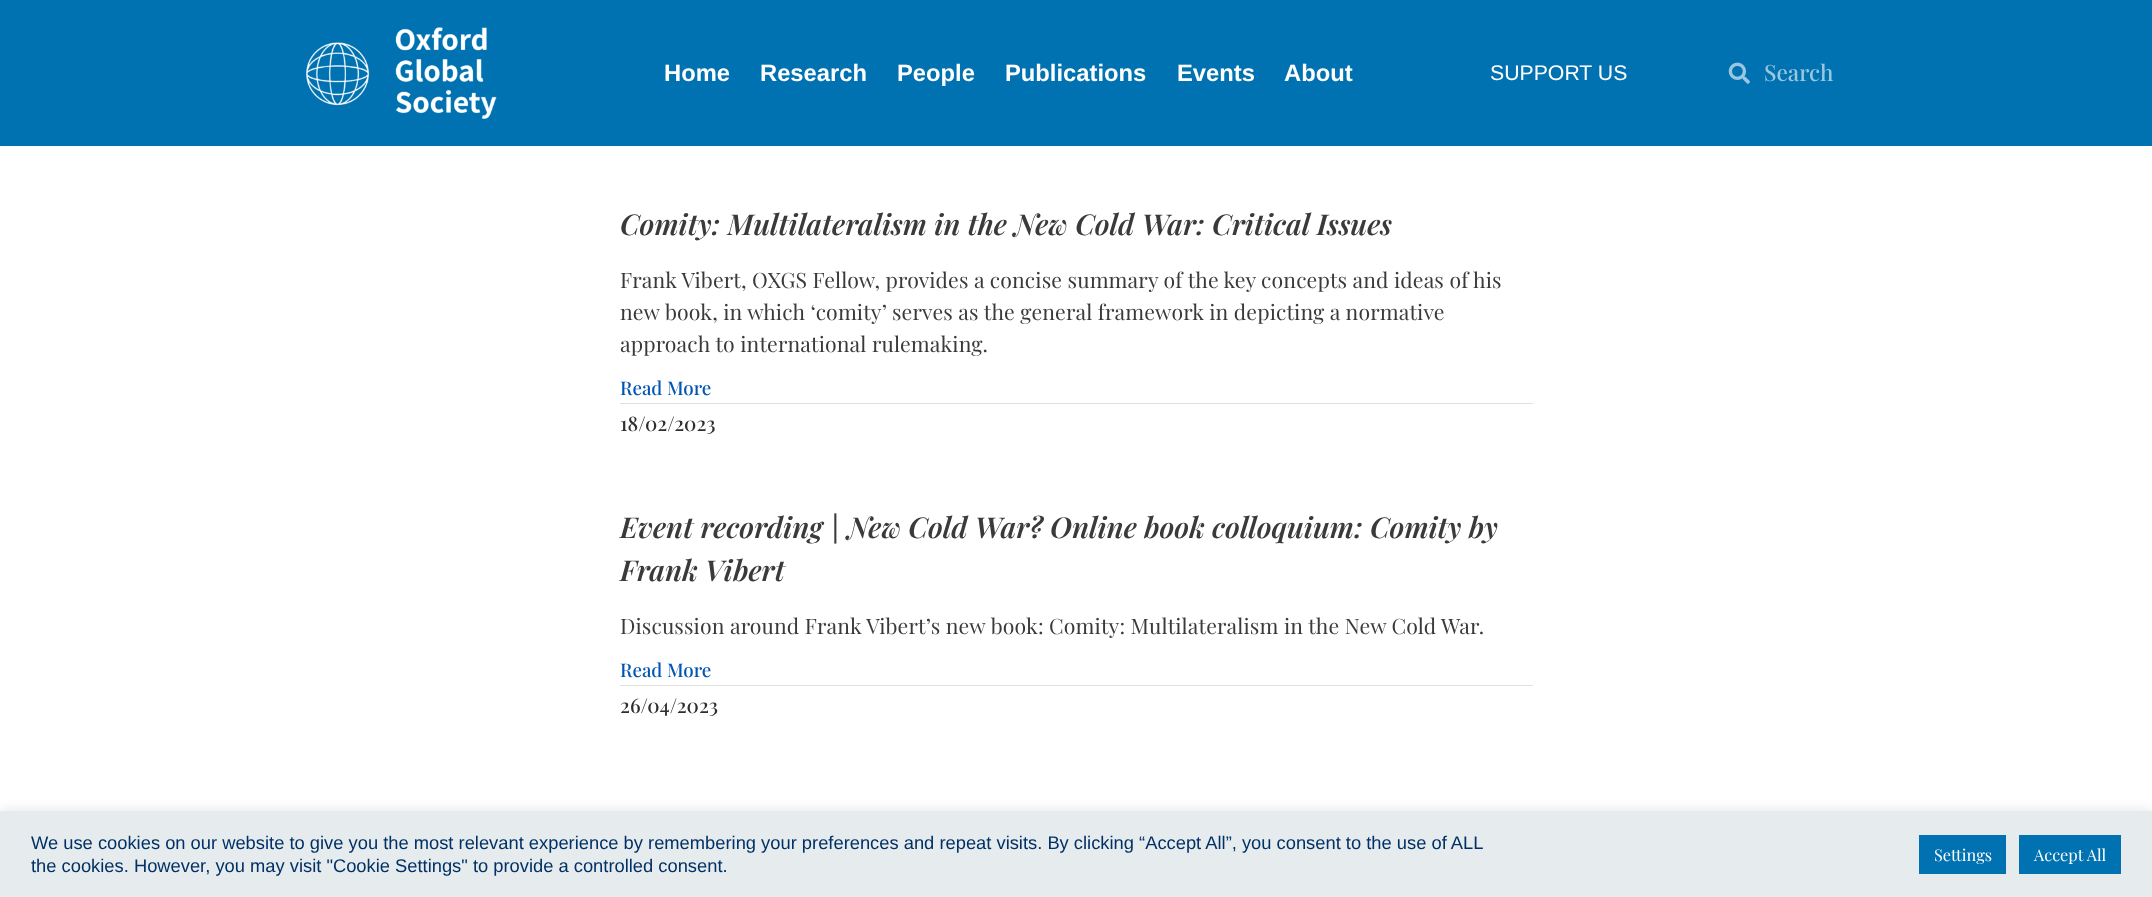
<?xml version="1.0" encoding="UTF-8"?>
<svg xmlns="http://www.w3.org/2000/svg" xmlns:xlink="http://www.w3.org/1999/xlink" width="2152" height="897">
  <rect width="100%" height="100%" fill="#ffffff" />
  <rect width="2152" height="146" fill="#0072b1" />
  <image x="306" y="27" width="191" height="92" xlink:href="image1.png" />
  <image x="1728" y="62" width="22" height="22" xlink:href="image2.png" />
  <rect x="620" y="403" width="913" height="1" fill="#e0e0e0" />
  <rect x="620" y="685" width="913" height="1" fill="#e0e0e0" />
  <rect y="810" width="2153" height="86" fill="#acabab" fill-opacity="0.3" filter="blur(6px)" />
  <rect y="811" width="2152" height="86" fill="#e6eced" />
  <rect x="1919" y="835" width="87" height="39" fill="#0072b1" />
  <rect x="2019" y="835" width="102" height="39" fill="#0072b1" />
  <text x="664" y="81" style="font-family: Liberation Sans; font-size: 23.75px; font-weight: bold; fill: #ffffff">Home</text>
  <text x="760" y="81" style="font-family: Liberation Sans; font-size: 23.75px; font-weight: bold; fill: #ffffff">Research</text>
  <text x="897" y="81" style="font-family: Liberation Sans; font-size: 23.75px; font-weight: bold; fill: #ffffff">People</text>
  <text x="1005" y="81" style="font-family: Liberation Sans; font-size: 23.75px; font-weight: bold; fill: #ffffff">Publications</text>
  <text x="1177" y="81" style="font-family: Liberation Sans; font-size: 23.75px; font-weight: bold; fill: #ffffff">Events</text>
  <text x="1284" y="81" style="font-family: Liberation Sans; font-size: 23.75px; font-weight: bold; fill: #ffffff">About</text>
  <text x="1490" y="80" style="font-family: Liberation Sans; font-size: 21.25px; fill: #ffffff">SUPPORT US</text>
  <text x="1764" y="81" style="font-family: Playfair Display; font-size: 22.5px; font-weight: 500; fill: #99c7e0">Search</text>
  <text x="620" y="235" style="font-family: Playfair Display; font-size: 28.75px; font-weight: 600; font-style: italic; fill: #3a3a3a">Comity: Multilateralism in the New Cold War: Critical Issues</text>
  <text x="620" y="288" style="font-family: Playfair Display; font-size: 21.25px; letter-spacing: 0.12px; fill: #3a3a3a">Frank Vibert, OXGS Fellow, provides a concise summary of the key concepts and ideas of his</text>
  <text x="620" y="320" style="font-family: Playfair Display; font-size: 21.25px; letter-spacing: 0.12px; fill: #3a3a3a">new book, in which ‘comity’ serves as the general framework in depicting a normative</text>
  <text x="620" y="352" style="font-family: Playfair Display; font-size: 21.25px; letter-spacing: 0.12px; fill: #3a3a3a">approach to international rulemaking.</text>
  <text x="620" y="395" style="font-family: Playfair Display; font-size: 18.75px; font-weight: 500; fill: #0155b3">Read More</text>
  <text x="620" y="431" style="font-family: Playfair Display; font-size: 20px; font-weight: 500; fill: #2f2d2d">18/02/2023</text>
  <text x="620" y="538" style="font-family: Playfair Display; font-size: 28.75px; font-weight: 600; font-style: italic; fill: #3a3a3a">Event recording | New Cold War? Online book colloquium: Comity by</text>
  <text x="620" y="581" style="font-family: Playfair Display; font-size: 28.75px; font-weight: 600; font-style: italic; fill: #3a3a3a">Frank Vibert</text>
  <text x="620" y="634" style="font-family: Playfair Display; font-size: 21.25px; letter-spacing: 0.12px; fill: #3a3a3a">Discussion around Frank Vibert’s new book: Comity: Multilateralism in the New Cold War.</text>
  <text x="620" y="677" style="font-family: Playfair Display; font-size: 18.75px; font-weight: 500; fill: #0155b3">Read More</text>
  <text x="620" y="713" style="font-family: Playfair Display; font-size: 20px; font-weight: 500; fill: #2f2d2d">26/04/2023</text>
  <text x="31" y="849" style="font-family: Liberation Sans; font-size: 18.33px; fill: #003066">We use cookies on our website to give you the most relevant experience by remembering your preferences and repeat visits. By clicking “Accept All”, you consent to the use of ALL</text>
  <text x="31" y="872" style="font-family: Liberation Sans; font-size: 18.33px; fill: #003066">the cookies. However, you may visit "Cookie Settings" to provide a controlled consent.</text>
  <text x="1934" y="861" style="font-family: Playfair Display; font-size: 16.25px; fill: #ffffff">Settings</text>
  <text x="2034" y="861" style="font-family: Playfair Display; font-size: 16.25px; fill: #ffffff">Accept All</text>
</svg>
